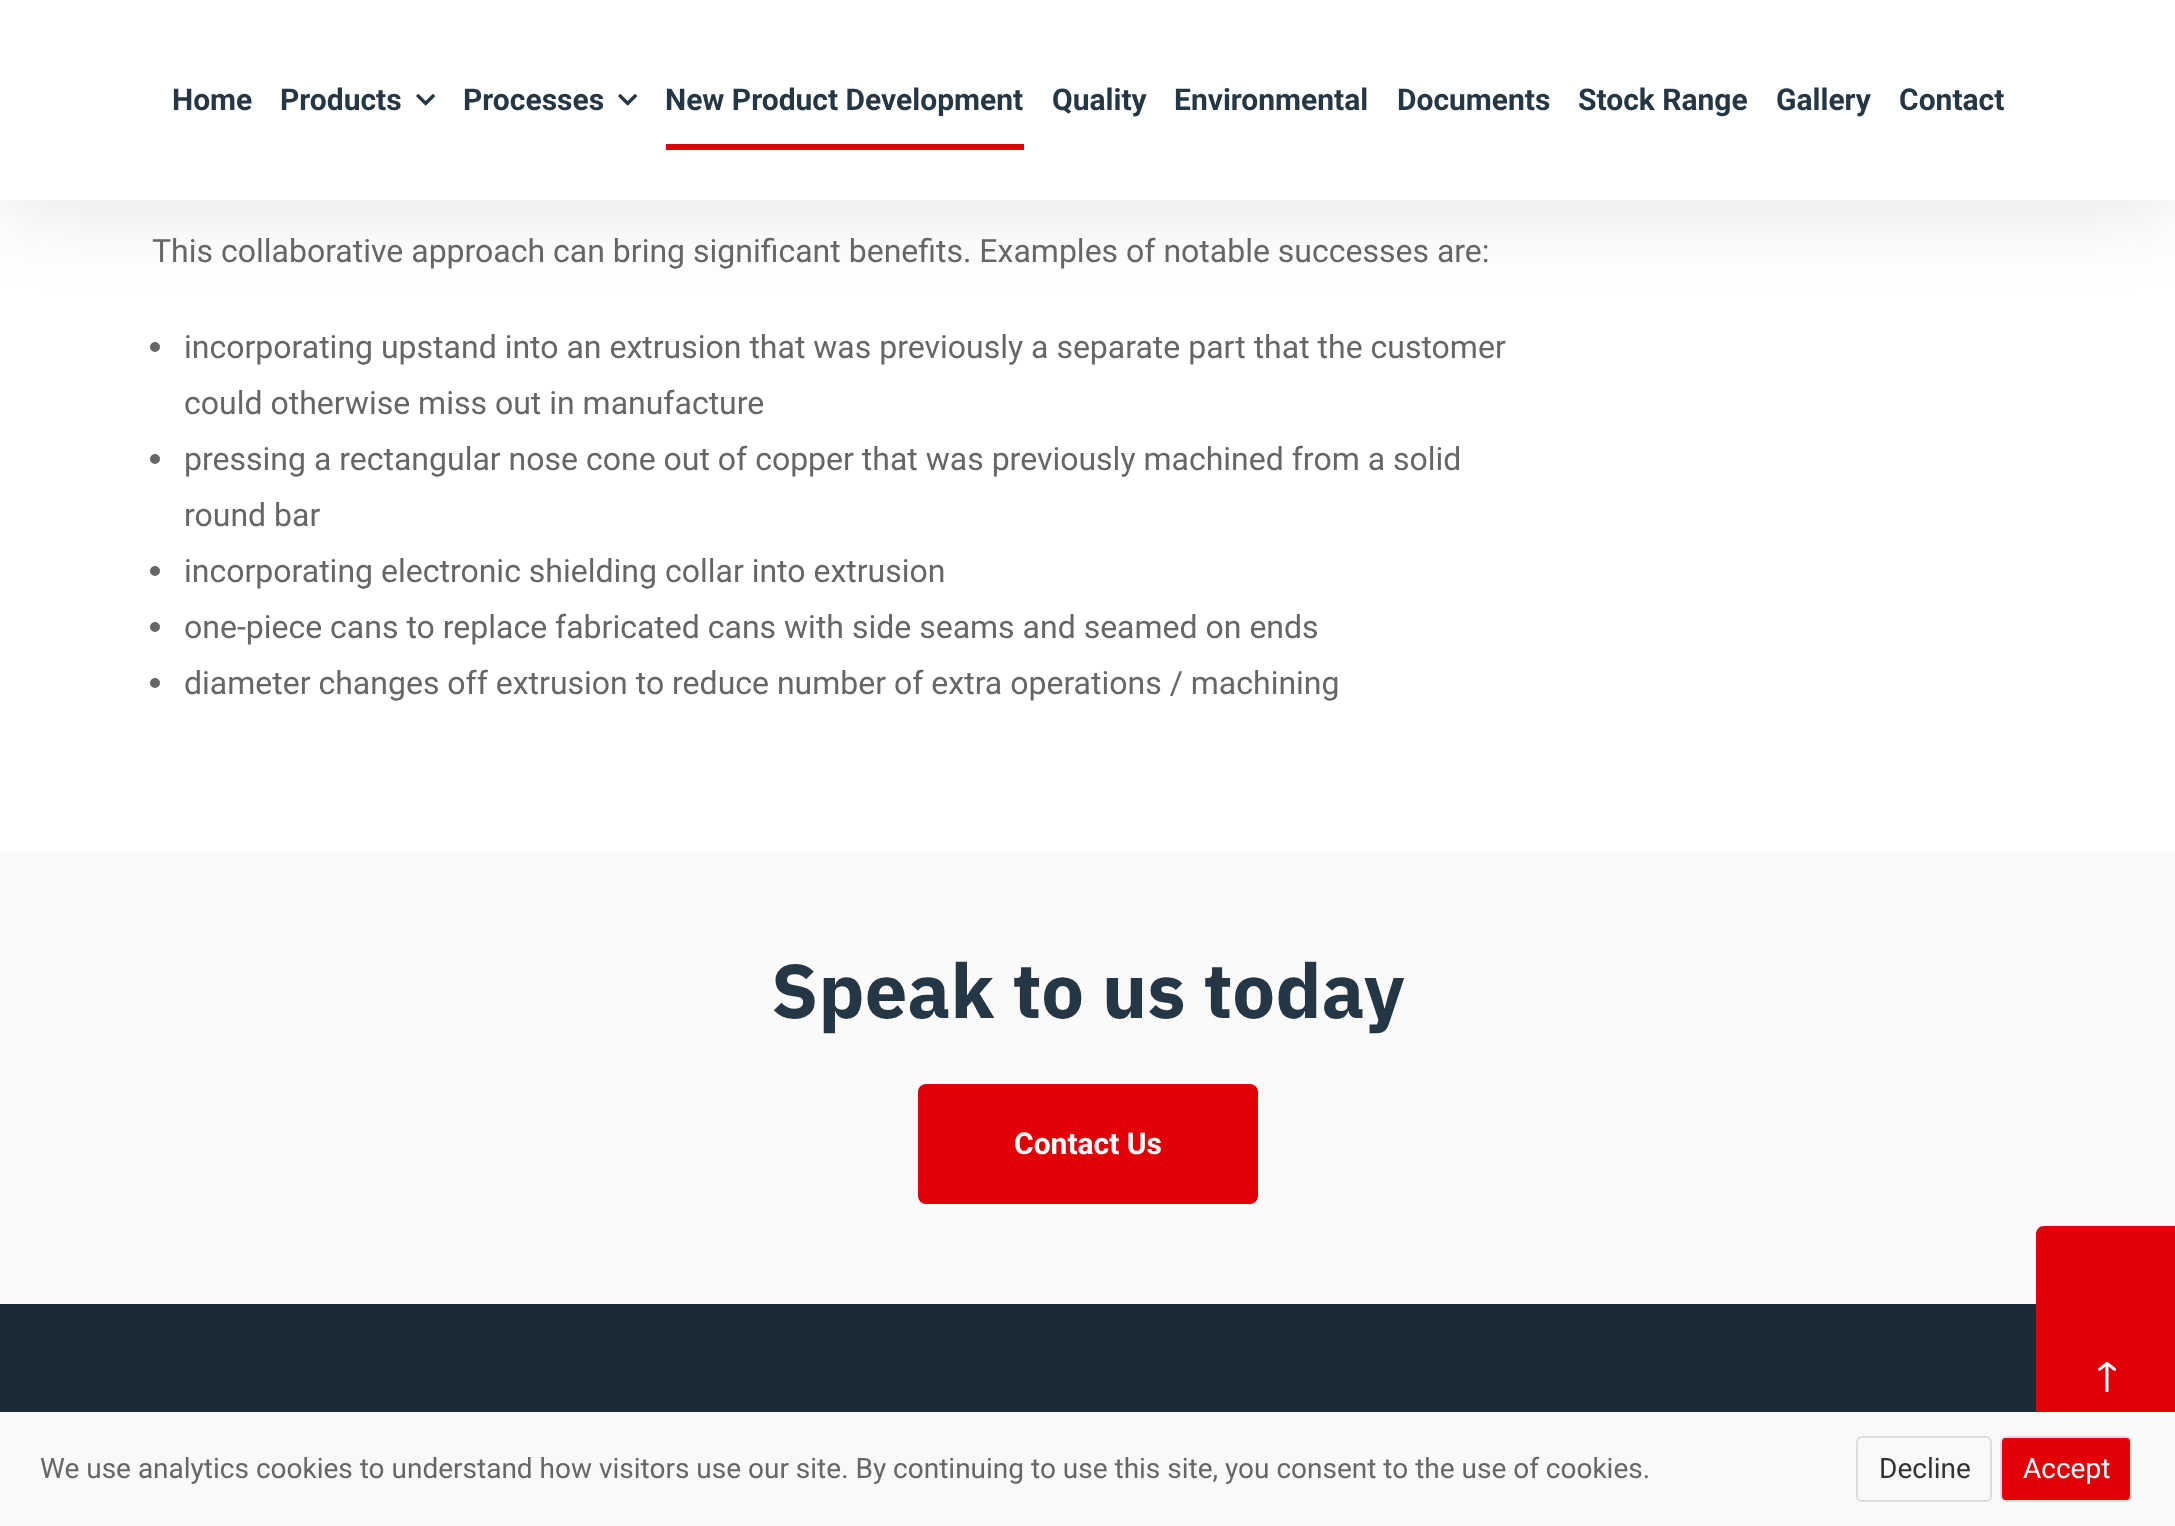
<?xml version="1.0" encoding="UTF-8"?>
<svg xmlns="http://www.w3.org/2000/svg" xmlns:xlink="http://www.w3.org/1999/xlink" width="2175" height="1526">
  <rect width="100%" height="100%" fill="#ffffff" />
  <rect y="10" width="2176" height="200" fill="#091d3e" fill-opacity="0.11" filter="blur(41.5px)" />
  <rect width="2175" height="200" fill="#ffffff" />
  <image x="416" y="94" width="19" height="12" xlink:href="image1.png" />
  <image x="618" y="94" width="19" height="12" xlink:href="image1.png" />
  <rect x="666" y="144" width="358" height="6" fill="#e10005" />
  <circle cx="155" cy="347" r="5" fill="#666666" />
  <circle cx="155" cy="459" r="5" fill="#666666" />
  <circle cx="155" cy="571" r="5" fill="#666666" />
  <circle cx="155" cy="627" r="5" fill="#666666" />
  <circle cx="155" cy="683" r="5" fill="#666666" />
  <rect y="852" width="2175" height="452" fill="#fafafa" />
  <rect x="918" y="1084" width="340" height="120" rx="8" fill="#e10005" />
  <rect y="1304" width="2036" height="108" fill="#1a2a36" />
  <path d="M 2044 1226 h 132 v 300 h -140 v -292 c 0 -4.5 3.5 -8 8 -8 z" fill="#e10005" />
  <image x="2098" y="1361" width="18" height="31" xlink:href="image2.png" />
  <rect y="1412" width="2175" height="114" fill="#f9f9f9" />
  <rect x="1857" y="1437" width="134" height="64" rx="5" fill="none" stroke="#dddddd" stroke-width="2" />
  <rect x="2001" y="1437" width="130" height="64" rx="5" fill="#e10005" stroke="#dddddd" stroke-width="2" />
  <text x="172" y="110" style="font-family: Roboto; font-size: 30px; font-weight: bold; fill: #253745">Home</text>
  <text x="280" y="110" style="font-family: Roboto; font-size: 30px; font-weight: bold; fill: #253745">Products</text>
  <text x="463" y="110" style="font-family: Roboto; font-size: 30px; font-weight: bold; fill: #253745">Processes</text>
  <text x="665" y="110" style="font-family: Roboto; font-size: 30px; font-weight: bold; fill: #253745">New Product Development</text>
  <text x="1052" y="110" style="font-family: Roboto; font-size: 30px; font-weight: bold; fill: #253745">Quality</text>
  <text x="1174" y="110" style="font-family: Roboto; font-size: 30px; font-weight: bold; fill: #253745">Environmental</text>
  <text x="1397" y="110" style="font-family: Roboto; font-size: 30px; font-weight: bold; fill: #253745">Documents</text>
  <text x="1578" y="110" style="font-family: Roboto; font-size: 30px; font-weight: bold; fill: #253745">Stock Range</text>
  <text x="1776" y="110" style="font-family: Roboto; font-size: 30px; font-weight: bold; fill: #253745">Gallery</text>
  <text x="1899" y="110" style="font-family: Roboto; font-size: 30px; font-weight: bold; fill: #253745">Contact</text>
  <text x="152" y="262" style="font-family: Roboto; font-size: 32px; fill: #666666">This collaborative approach can bring significant benefits. Examples of notable successes are:</text>
  <text x="184" y="358" style="font-family: Roboto; font-size: 32px; fill: #666666">incorporating upstand into an extrusion that was previously a separate part that the customer</text>
  <text x="184" y="414" style="font-family: Roboto; font-size: 32px; fill: #666666">could otherwise miss out in manufacture</text>
  <text x="184" y="470" style="font-family: Roboto; font-size: 32px; fill: #666666">pressing a rectangular nose cone out of copper that was previously machined from a solid</text>
  <text x="184" y="526" style="font-family: Roboto; font-size: 32px; fill: #666666">round bar</text>
  <text x="184" y="582" style="font-family: Roboto; font-size: 32px; fill: #666666">incorporating electronic shielding collar into extrusion</text>
  <text x="184" y="638" style="font-family: Roboto; font-size: 32px; fill: #666666">one-piece cans to replace fabricated cans with side seams and seamed on ends</text>
  <text x="184" y="694" style="font-family: Roboto; font-size: 32px; fill: #666666">diameter changes off extrusion to reduce number of extra operations / machining</text>
  <text x="771" y="1018" style="font-family: IBM Plex Sans; font-size: 76px; font-weight: bold; fill: #253745">Speak to us today</text>
  <text x="1014" y="1154" style="font-family: Roboto; font-size: 30px; font-weight: bold; fill: #ffffff">Contact Us</text>
  <text x="40" y="1478" style="font-family: Roboto; font-size: 28px; fill: #666666">We use analytics cookies to understand how visitors use our site. By continuing to use this site, you consent to the use of cookies.</text>
  <text x="1879" y="1478" style="font-family: Roboto; font-size: 28px; fill: #333333">Decline</text>
  <text x="2023" y="1478" style="font-family: Roboto; font-size: 28px; fill: #ffffff">Accept</text>
</svg>
